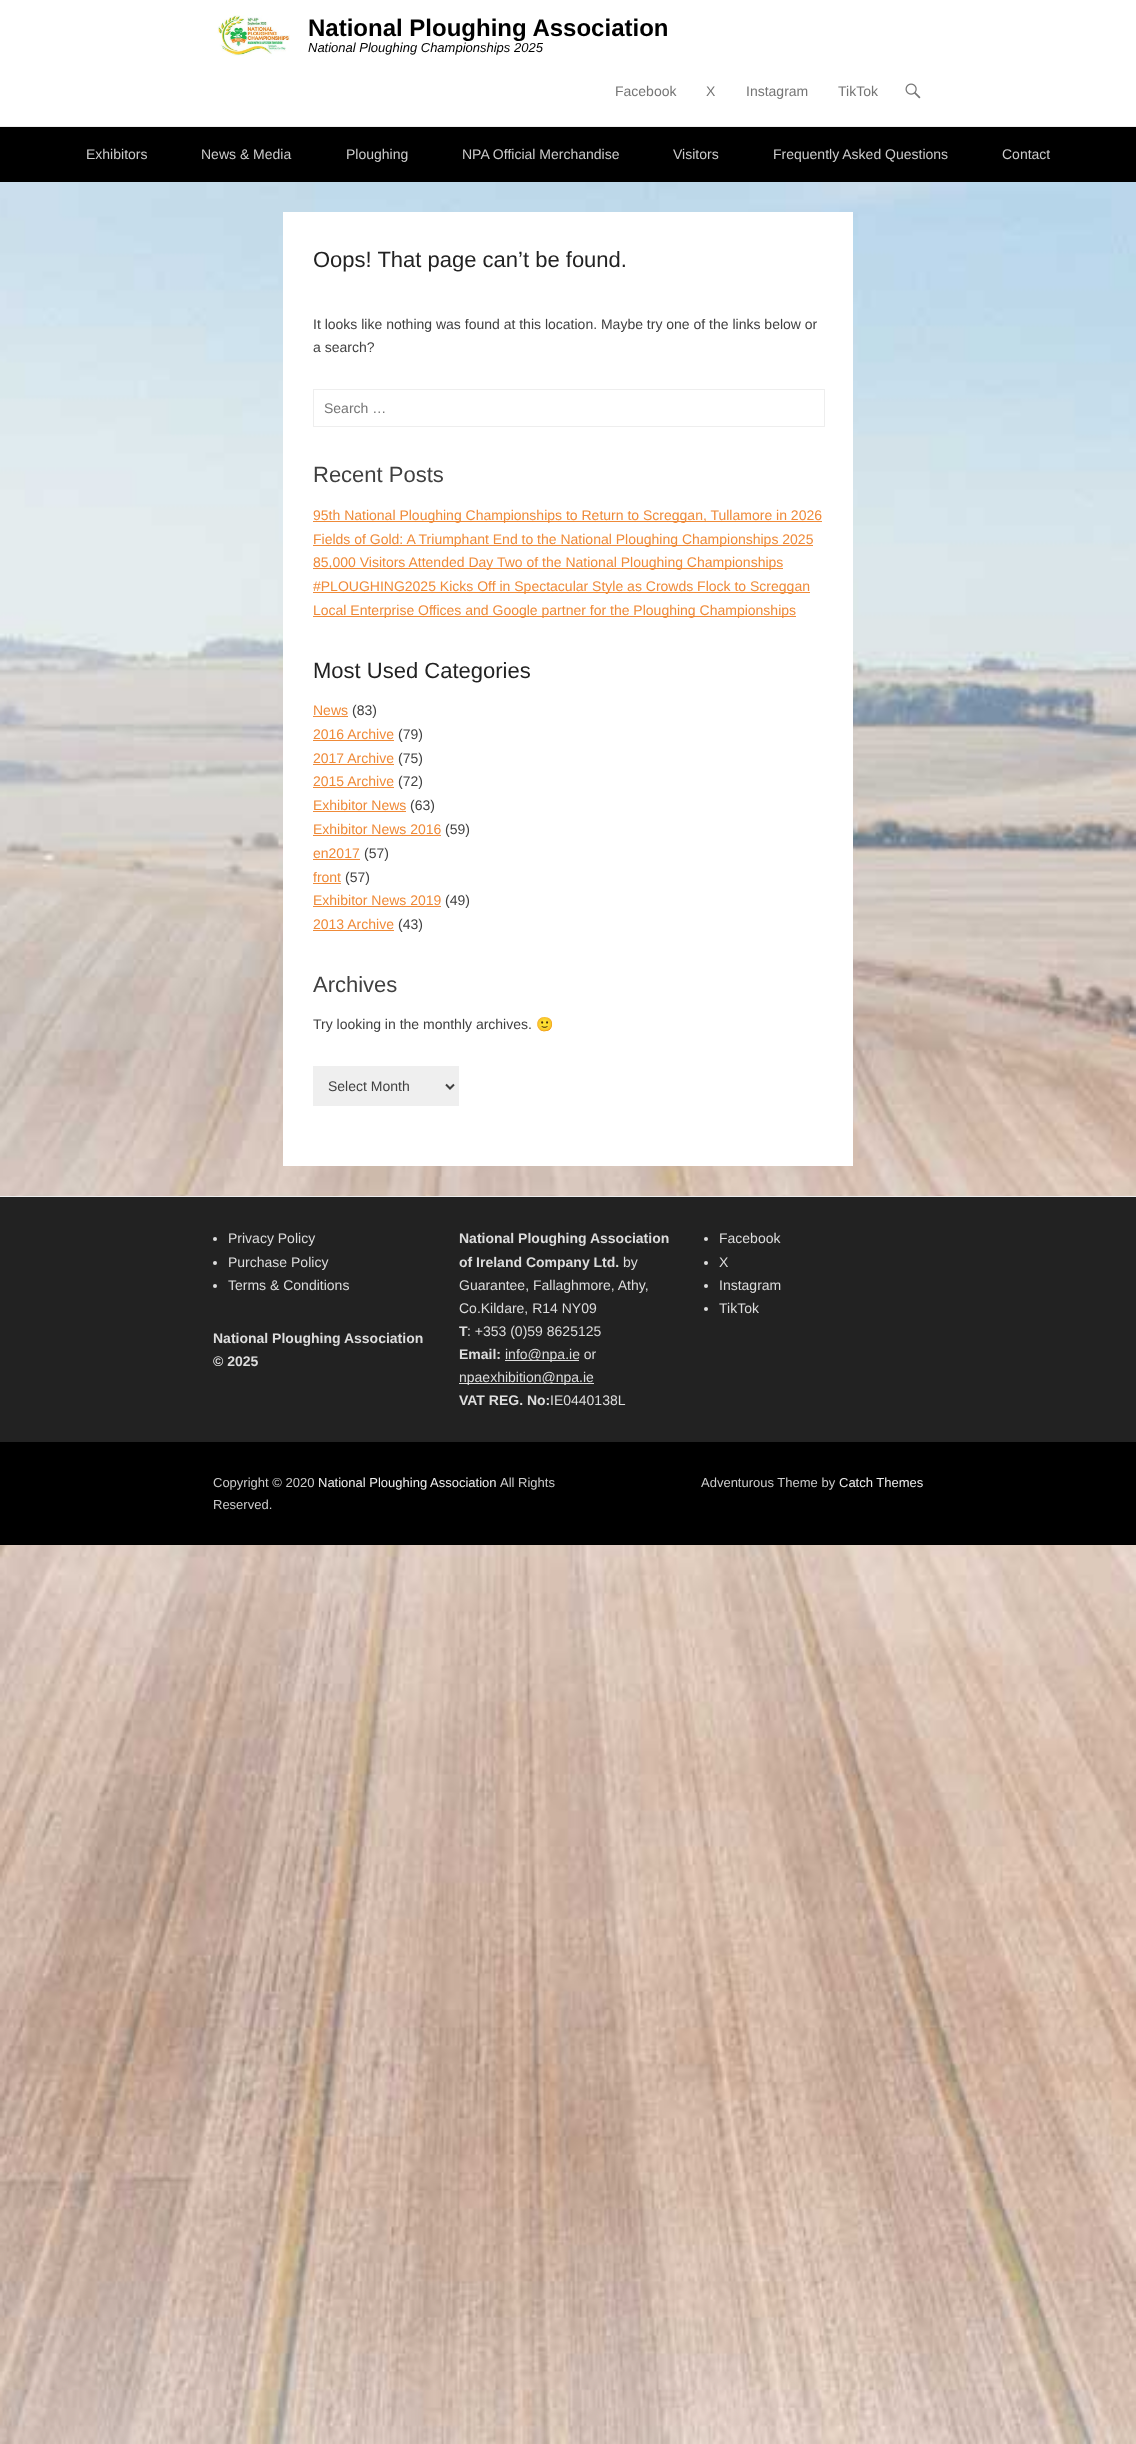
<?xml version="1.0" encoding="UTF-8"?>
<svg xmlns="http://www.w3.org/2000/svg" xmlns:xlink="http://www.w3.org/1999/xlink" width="1136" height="2444">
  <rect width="100%" height="100%" fill="#ffffff" />
  <image x="0" y="182" width="1136" height="2262" xlink:href="image1.png" />
  <rect y="126" width="1136" height="1" fill="#eeeeee" />
  <image x="217" y="15" width="73" height="41" xlink:href="image2.png" />
  <image x="905" y="83" width="16" height="16" xlink:href="image3.png" />
  <rect y="127" width="1136" height="55" fill="#000000" />
  <rect x="283" y="212" width="570" height="954" fill="#ffffff" />
  <rect x="313.5" y="389.5" width="511" height="37" fill="none" stroke="#eeeeee" />
  <rect x="313" y="521" width="509" height="1" fill="#ef8a38" />
  <rect x="313" y="545" width="500" height="1" fill="#ef8a38" />
  <rect x="313" y="568" width="470" height="1" fill="#ef8a38" />
  <rect x="313" y="592" width="497" height="1" fill="#ef8a38" />
  <rect x="313" y="616" width="483" height="1" fill="#ef8a38" />
  <rect x="313" y="716" width="35" height="1" fill="#ef8a38" />
  <rect x="313" y="740" width="81" height="1" fill="#ef8a38" />
  <rect x="313" y="764" width="81" height="1" fill="#ef8a38" />
  <rect x="313" y="787" width="81" height="1" fill="#ef8a38" />
  <rect x="313" y="811" width="93" height="1" fill="#ef8a38" />
  <rect x="313" y="835" width="128" height="1" fill="#ef8a38" />
  <rect x="313" y="859" width="47" height="1" fill="#ef8a38" />
  <rect x="313" y="883" width="28" height="1" fill="#ef8a38" />
  <rect x="313" y="906" width="128" height="1" fill="#ef8a38" />
  <rect x="313" y="930" width="81" height="1" fill="#ef8a38" />
  <rect x="313" y="1066" width="146" height="40" fill="#efefef" />
  <path d="M 446 1084.5 l 4 4 l 4 -4" fill="none" stroke="#404040" stroke-width="2" />
  <rect y="1196" width="1136" height="1" fill="#eeeeee" />
  <rect y="1197" width="1136" height="245" fill="#222222" />
  <circle cx="215" cy="1239" r="2" fill="#dddddd" />
  <circle cx="215" cy="1263" r="2" fill="#dddddd" />
  <circle cx="215" cy="1286" r="2" fill="#dddddd" />
  <rect x="505" y="1360" width="74" height="1" fill="#dddddd" />
  <rect x="459" y="1383" width="135" height="1" fill="#dddddd" />
  <circle cx="706" cy="1239" r="2" fill="#dddddd" />
  <circle cx="706" cy="1263" r="2" fill="#dddddd" />
  <circle cx="706" cy="1286" r="2" fill="#dddddd" />
  <circle cx="706" cy="1309" r="2" fill="#dddddd" />
  <rect y="1442" width="1136" height="103" fill="#000000" />
  <text x="308" y="36" style="font-family: Liberation Sans; font-size: 24px; font-weight: bold; fill: #000000">National Ploughing Association</text>
  <text x="308" y="52" style="font-family: Liberation Sans; font-size: 13px; font-style: italic; fill: #000000">National Ploughing Championships 2025</text>
  <text x="615" y="96" style="font-family: Liberation Sans; font-size: 14px; fill: #757575">Facebook</text>
  <text x="706" y="96" style="font-family: Liberation Sans; font-size: 14px; fill: #757575">X</text>
  <text x="746" y="96" style="font-family: Liberation Sans; font-size: 14px; fill: #757575">Instagram</text>
  <text x="838" y="96" style="font-family: Liberation Sans; font-size: 14px; fill: #757575">TikTok</text>
  <text x="86" y="159" style="font-family: Liberation Sans; font-size: 14px; fill: #cccccc">Exhibitors</text>
  <text x="201" y="159" style="font-family: Liberation Sans; font-size: 14px; fill: #cccccc">News &amp; Media</text>
  <text x="346" y="159" style="font-family: Liberation Sans; font-size: 14px; fill: #cccccc">Ploughing</text>
  <text x="462" y="159" style="font-family: Liberation Sans; font-size: 14px; fill: #cccccc">NPA Official Merchandise</text>
  <text x="673" y="159" style="font-family: Liberation Sans; font-size: 14px; fill: #cccccc">Visitors</text>
  <text x="773" y="159" style="font-family: Liberation Sans; font-size: 14px; fill: #cccccc">Frequently Asked Questions</text>
  <text x="1002" y="159" style="font-family: Liberation Sans; font-size: 14px; fill: #cccccc">Contact</text>
  <text x="313" y="267" style="font-family: Liberation Sans; font-size: 22px; fill: #222222">Oops! That page can’t be found.</text>
  <text x="313" y="329" style="font-family: Liberation Sans; font-size: 14px; fill: #404040">It looks like nothing was found at this location. Maybe try one of the links below or</text>
  <text x="313" y="352" style="font-family: Liberation Sans; font-size: 14px; fill: #404040">a search?</text>
  <text x="324" y="413" style="font-family: Liberation Sans; font-size: 14px; fill: #757575">Search …</text>
  <text x="313" y="482" style="font-family: Liberation Sans; font-size: 22px; fill: #404040">Recent Posts</text>
  <text x="313" y="520" style="font-family: Liberation Sans; font-size: 14px; fill: #ef8a38">95th National Ploughing Championships to Return to Screggan, Tullamore in 2026</text>
  <text x="313" y="544" style="font-family: Liberation Sans; font-size: 14px; fill: #ef8a38">Fields of Gold: A Triumphant End to the National Ploughing Championships 2025</text>
  <text x="313" y="567" style="font-family: Liberation Sans; font-size: 14px; fill: #ef8a38">85,000 Visitors Attended Day Two of the National Ploughing Championships</text>
  <text x="313" y="591" style="font-family: Liberation Sans; font-size: 14px; fill: #ef8a38">#PLOUGHING2025 Kicks Off in Spectacular Style as Crowds Flock to Screggan</text>
  <text x="313" y="615" style="font-family: Liberation Sans; font-size: 14px; fill: #ef8a38">Local Enterprise Offices and Google partner for the Ploughing Championships</text>
  <text x="313" y="678" style="font-family: Liberation Sans; font-size: 22px; fill: #222222">Most Used Categories</text>
  <text x="313" y="715" style="font-family: Liberation Sans; font-size: 14px; fill: #ef8a38">News</text>
  <text x="352" y="715" style="font-family: Liberation Sans; font-size: 14px; fill: #404040">(83)</text>
  <text x="313" y="739" style="font-family: Liberation Sans; font-size: 14px; fill: #ef8a38">2016 Archive</text>
  <text x="398" y="739" style="font-family: Liberation Sans; font-size: 14px; fill: #404040">(79)</text>
  <text x="313" y="763" style="font-family: Liberation Sans; font-size: 14px; fill: #ef8a38">2017 Archive</text>
  <text x="398" y="763" style="font-family: Liberation Sans; font-size: 14px; fill: #404040">(75)</text>
  <text x="313" y="786" style="font-family: Liberation Sans; font-size: 14px; fill: #ef8a38">2015 Archive</text>
  <text x="398" y="786" style="font-family: Liberation Sans; font-size: 14px; fill: #404040">(72)</text>
  <text x="313" y="810" style="font-family: Liberation Sans; font-size: 14px; fill: #ef8a38">Exhibitor News</text>
  <text x="410" y="810" style="font-family: Liberation Sans; font-size: 14px; fill: #404040">(63)</text>
  <text x="313" y="834" style="font-family: Liberation Sans; font-size: 14px; fill: #ef8a38">Exhibitor News 2016</text>
  <text x="445" y="834" style="font-family: Liberation Sans; font-size: 14px; fill: #404040">(59)</text>
  <text x="313" y="858" style="font-family: Liberation Sans; font-size: 14px; fill: #ef8a38">en2017</text>
  <text x="364" y="858" style="font-family: Liberation Sans; font-size: 14px; fill: #404040">(57)</text>
  <text x="313" y="882" style="font-family: Liberation Sans; font-size: 14px; fill: #ef8a38">front</text>
  <text x="345" y="882" style="font-family: Liberation Sans; font-size: 14px; fill: #404040">(57)</text>
  <text x="313" y="905" style="font-family: Liberation Sans; font-size: 14px; fill: #ef8a38">Exhibitor News 2019</text>
  <text x="445" y="905" style="font-family: Liberation Sans; font-size: 14px; fill: #404040">(49)</text>
  <text x="313" y="929" style="font-family: Liberation Sans; font-size: 14px; fill: #ef8a38">2013 Archive</text>
  <text x="398" y="929" style="font-family: Liberation Sans; font-size: 14px; fill: #404040">(43)</text>
  <text x="313" y="992" style="font-family: Liberation Sans; font-size: 22px; fill: #404040">Archives</text>
  <text x="313" y="1029" style="font-family: Liberation Sans; font-size: 14px; fill: #404040">Try looking in the monthly archives.</text>
  <text x="536" y="1029" style="font-family: Noto Color Emoji; font-size: 14px; fill: #404040">🙂</text>
  <text x="328" y="1091" style="font-family: Liberation Sans; font-size: 14px; fill: #404040">Select Month</text>
  <text x="228" y="1243" style="font-family: Liberation Sans; font-size: 14px; fill: #dddddd">Privacy Policy</text>
  <text x="228" y="1267" style="font-family: Liberation Sans; font-size: 14px; fill: #dddddd">Purchase Policy</text>
  <text x="228" y="1290" style="font-family: Liberation Sans; font-size: 14px; fill: #dddddd">Terms &amp; Conditions</text>
  <text x="213" y="1343" style="font-family: Liberation Sans; font-size: 14px; font-weight: bold; fill: #dddddd">National Ploughing Association</text>
  <text x="213" y="1366" style="font-family: Liberation Sans; font-size: 14px; font-weight: bold; fill: #dddddd">© 2025</text>
  <text x="459" y="1243" style="font-family: Liberation Sans; font-size: 14px; font-weight: bold; fill: #dddddd">National Ploughing Association</text>
  <text x="459" y="1267" style="font-family: Liberation Sans; font-size: 14px; font-weight: bold; fill: #dddddd">of Ireland Company Ltd.</text>
  <text x="623" y="1267" style="font-family: Liberation Sans; font-size: 14px; fill: #dddddd">by</text>
  <text x="459" y="1290" style="font-family: Liberation Sans; font-size: 14px; fill: #dddddd">Guarantee, Fallaghmore, Athy,</text>
  <text x="459" y="1313" style="font-family: Liberation Sans; font-size: 14px; fill: #dddddd">Co.Kildare, R14 NY09</text>
  <text x="459" y="1336" style="font-family: Liberation Sans; font-size: 14px; font-weight: bold; fill: #dddddd">T</text>
  <text x="467" y="1336" style="font-family: Liberation Sans; font-size: 14px; fill: #dddddd">: +353 (0)59 8625125</text>
  <text x="459" y="1359" style="font-family: Liberation Sans; font-size: 14px; font-weight: bold; fill: #dddddd">Email:</text>
  <text x="505" y="1359" style="font-family: Liberation Sans; font-size: 14px; fill: #dddddd">info@npa.ie or</text>
  <text x="459" y="1382" style="font-family: Liberation Sans; font-size: 14px; fill: #dddddd">npaexhibition@npa.ie</text>
  <text x="459" y="1405" style="font-family: Liberation Sans; font-size: 14px; font-weight: bold; fill: #dddddd">VAT REG. No:</text>
  <text x="550" y="1405" style="font-family: Liberation Sans; font-size: 14px; fill: #dddddd">IE0440138L</text>
  <text x="719" y="1243" style="font-family: Liberation Sans; font-size: 14px; fill: #dddddd">Facebook</text>
  <text x="719" y="1267" style="font-family: Liberation Sans; font-size: 14px; fill: #dddddd">X</text>
  <text x="719" y="1290" style="font-family: Liberation Sans; font-size: 14px; fill: #dddddd">Instagram</text>
  <text x="719" y="1313" style="font-family: Liberation Sans; font-size: 14px; fill: #dddddd">TikTok</text>
  <text x="213" y="1487" style="font-family: Liberation Sans; font-size: 13px; fill: #cccccc">Copyright © 2020</text>
  <text x="318" y="1487" style="font-family: Liberation Sans; font-size: 13px; fill: #eeeeee">National Ploughing Association</text>
  <text x="500" y="1487" style="font-family: Liberation Sans; font-size: 13px; fill: #cccccc">All Rights</text>
  <text x="213" y="1509" style="font-family: Liberation Sans; font-size: 13px; fill: #cccccc">Reserved.</text>
  <text x="701" y="1487" style="font-family: Liberation Sans; font-size: 13px; fill: #cccccc">Adventurous Theme by</text>
  <text x="839" y="1487" style="font-family: Liberation Sans; font-size: 13px; fill: #eeeeee">Catch Themes</text>
</svg>
